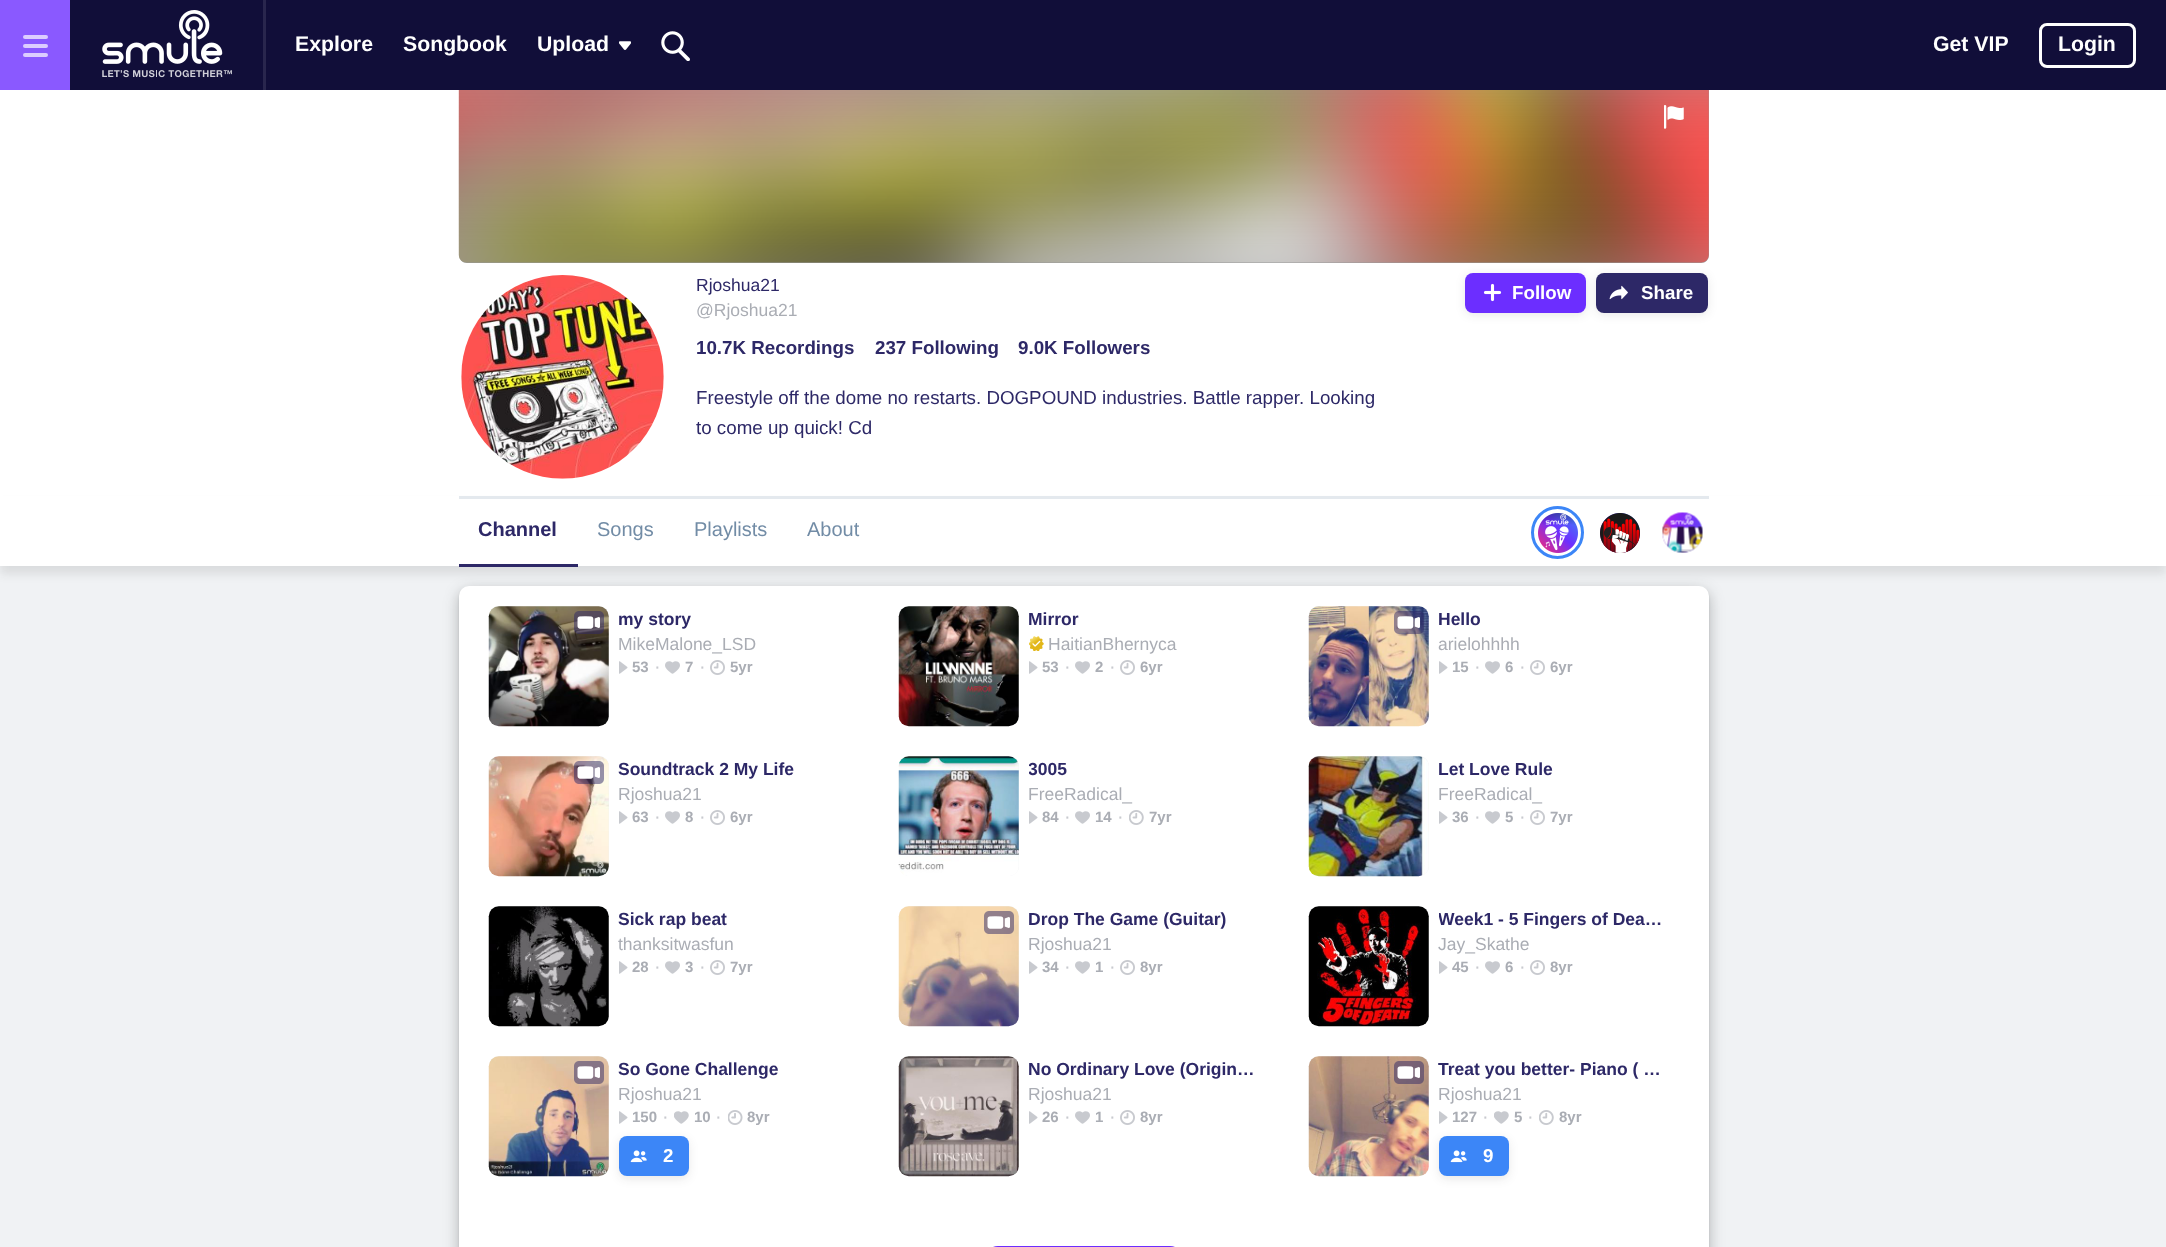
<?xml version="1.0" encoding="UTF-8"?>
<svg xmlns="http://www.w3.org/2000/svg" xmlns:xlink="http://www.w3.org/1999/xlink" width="2166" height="1247">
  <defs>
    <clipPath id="clip1"><rect x="1029" y="756" width="229" height="25" /></clipPath>
    <clipPath id="clip2"><rect x="1439" y="906" width="229" height="25" /></clipPath>
  </defs>
  <rect width="100%" height="100%" fill="#f0f2f4" />
  <rect x="70" width="2096" height="90" fill="#110e39" />
  <rect width="70" height="90" fill="#8a59ff" />
  <rect x="23" y="44" width="25" height="4" rx="2" fill="#dccdff" />
  <rect x="23" y="35" width="25" height="4" rx="2" fill="#dccdff" />
  <rect x="23" y="53" width="25" height="4" rx="2" fill="#dccdff" />
  <image x="102" y="10" width="130" height="68" xlink:href="image1.png" />
  <rect x="263" width="3" height="90" fill="#29264d" />
  <image x="619" y="41" width="12" height="9" xlink:href="image2.png" />
  <image x="661" y="31" width="29" height="30" xlink:href="image3.png" />
  <rect x="2040.5" y="24.5" width="94" height="42" rx="6.5" fill="none" stroke="#ffffff" stroke-width="3" />
  <rect y="90" width="2166" height="406" fill="#ffffff" />
  <path d="M 459 90 h 1250 v 165 c 0 4.5 -3.5 8 -8 8 h -1234 c -4.5 0 -8 -3.5 -8 -8 z" fill="#999999" />
  <image x="458" y="90" width="1251" height="173" xlink:href="image4.png" />
  <image x="1664" y="105" width="20" height="24" xlink:href="image5.png" />
  <image x="461" y="275" width="203" height="204" xlink:href="image6.png" />
  <rect x="1465" y="275" width="121" height="40" rx="8" fill="#1f2021" fill-opacity="0.1" filter="blur(5px)" />
  <rect x="1465" y="273" width="121" height="40" rx="8" fill="#6c2eff" />
  <image x="1483" y="283" width="19" height="19" xlink:href="image7.png" />
  <rect x="1596" y="275" width="112" height="40" rx="8" fill="#1f2021" fill-opacity="0.1" filter="blur(5px)" />
  <rect x="1596" y="273" width="112" height="40" rx="8" fill="#2d2867" />
  <image x="1609" y="285" width="19" height="15" xlink:href="image8.png" />
  <rect x="459" y="591" width="1250" height="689" rx="10" fill="#1f2021" fill-opacity="0.3" filter="blur(7.5px)" />
  <rect x="459" y="588" width="1250" height="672" rx="10" fill="#1f2021" fill-opacity="0.1" filter="blur(1px)" />
  <rect x="459" y="586" width="1250" height="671" rx="10" fill="#ffffff" />
  <rect y="504" width="2166" height="70" fill="#1f2021" fill-opacity="0.1" filter="blur(5px)" />
  <rect y="496" width="2166" height="70" fill="#ffffff" />
  <rect x="459" y="496" width="1250" height="3" fill="#e4e9ee" />
  <rect x="459" y="564" width="119" height="3" fill="#2d2867" />
  <circle cx="1557.5" cy="532.5" r="25" fill="none" stroke="#3c86f7" stroke-width="3" />
  <image x="1538" y="513" width="40" height="40" xlink:href="image9.png" />
  <image x="1600" y="513" width="40" height="40" xlink:href="image10.png" />
  <image x="1662" y="512" width="41" height="41" xlink:href="image11.png" />
  <rect x="489" y="606" width="120" height="120" rx="10" fill="#f0f2f4" />
  <image x="488" y="606" width="121" height="121" xlink:href="image12.png" />
  <image x="574" y="611" width="30" height="23" xlink:href="image13.png" />
  <image x="619" y="661" width="9" height="13" xlink:href="image14.png" />
  <image x="665" y="661" width="15" height="13" xlink:href="image15.png" />
  <image x="710" y="660" width="15" height="15" xlink:href="image16.png" />
  <rect x="899" y="606" width="120" height="120" rx="10" fill="#f0f2f4" />
  <image x="898" y="606" width="121" height="121" xlink:href="image17.png" />
  <image x="1029" y="636" width="15" height="15" xlink:href="image18.png" />
  <image x="1029" y="661" width="9" height="13" xlink:href="image14.png" />
  <image x="1075" y="661" width="15" height="13" xlink:href="image15.png" />
  <image x="1120" y="660" width="15" height="15" xlink:href="image16.png" />
  <rect x="1309" y="606" width="120" height="120" rx="10" fill="#f0f2f4" />
  <image x="1308" y="606" width="121" height="121" xlink:href="image19.png" />
  <image x="1394" y="611" width="30" height="23" xlink:href="image20.png" />
  <image x="1439" y="661" width="9" height="13" xlink:href="image14.png" />
  <image x="1485" y="661" width="15" height="13" xlink:href="image15.png" />
  <image x="1530" y="660" width="15" height="15" xlink:href="image16.png" />
  <rect x="489" y="756" width="120" height="120" rx="10" fill="#f0f2f4" />
  <image x="488" y="756" width="121" height="121" xlink:href="image21.png" />
  <image x="574" y="761" width="30" height="23" xlink:href="image22.png" />
  <image x="619" y="811" width="9" height="13" xlink:href="image14.png" />
  <image x="665" y="811" width="15" height="13" xlink:href="image15.png" />
  <image x="710" y="810" width="15" height="15" xlink:href="image16.png" />
  <rect x="899" y="756" width="120" height="120" rx="10" fill="#f0f2f4" />
  <image x="898" y="756" width="121" height="120" xlink:href="image23.png" />
  <image x="1029" y="811" width="9" height="13" xlink:href="image14.png" />
  <image x="1075" y="811" width="15" height="13" xlink:href="image15.png" />
  <image x="1129" y="810" width="15" height="15" xlink:href="image24.png" />
  <rect x="1309" y="756" width="120" height="120" rx="10" fill="#f0f2f4" />
  <image x="1308" y="756" width="121" height="121" xlink:href="image25.png" />
  <image x="1439" y="811" width="9" height="13" xlink:href="image14.png" />
  <image x="1485" y="811" width="15" height="13" xlink:href="image15.png" />
  <image x="1530" y="810" width="15" height="15" xlink:href="image16.png" />
  <rect x="489" y="906" width="120" height="120" rx="10" fill="#f0f2f4" />
  <image x="488" y="906" width="121" height="121" xlink:href="image26.png" />
  <image x="619" y="961" width="9" height="13" xlink:href="image14.png" />
  <image x="665" y="961" width="15" height="13" xlink:href="image15.png" />
  <image x="710" y="960" width="15" height="15" xlink:href="image16.png" />
  <rect x="899" y="906" width="120" height="120" rx="10" fill="#f0f2f4" />
  <image x="898" y="906" width="121" height="121" xlink:href="image27.png" />
  <image x="984" y="911" width="30" height="23" xlink:href="image28.png" />
  <image x="1029" y="961" width="9" height="13" xlink:href="image14.png" />
  <image x="1075" y="961" width="15" height="13" xlink:href="image15.png" />
  <image x="1120" y="960" width="15" height="15" xlink:href="image16.png" />
  <rect x="1309" y="906" width="120" height="120" rx="10" fill="#f0f2f4" />
  <image x="1308" y="906" width="121" height="121" xlink:href="image29.png" />
  <image x="1439" y="961" width="9" height="13" xlink:href="image14.png" />
  <image x="1485" y="961" width="15" height="13" xlink:href="image15.png" />
  <image x="1530" y="960" width="15" height="15" xlink:href="image16.png" />
  <rect x="489" y="1056" width="120" height="120" rx="10" fill="#f0f2f4" />
  <image x="488" y="1056" width="121" height="121" xlink:href="image30.png" />
  <image x="574" y="1061" width="30" height="23" xlink:href="image31.png" />
  <image x="619" y="1111" width="9" height="13" xlink:href="image14.png" />
  <image x="674" y="1111" width="15" height="13" xlink:href="image32.png" />
  <image x="728" y="1110" width="15" height="15" xlink:href="image33.png" />
  <rect x="619" y="1139" width="70" height="40" rx="8" fill="#1f2021" fill-opacity="0.1" filter="blur(5px)" />
  <rect x="619" y="1136" width="70" height="40" rx="8" fill="#3c86f7" />
  <image x="630" y="1150" width="17" height="13" xlink:href="image34.png" />
  <rect x="899" y="1056" width="120" height="120" rx="10" fill="#f0f2f4" />
  <image x="898" y="1056" width="121" height="121" xlink:href="image35.png" />
  <image x="1029" y="1111" width="9" height="13" xlink:href="image14.png" />
  <image x="1075" y="1111" width="15" height="13" xlink:href="image15.png" />
  <image x="1120" y="1110" width="15" height="15" xlink:href="image16.png" />
  <rect x="1309" y="1056" width="120" height="120" rx="10" fill="#f0f2f4" />
  <image x="1308" y="1056" width="121" height="121" xlink:href="image36.png" />
  <image x="1394" y="1061" width="30" height="23" xlink:href="image37.png" />
  <image x="1439" y="1111" width="9" height="13" xlink:href="image14.png" />
  <image x="1494" y="1111" width="15" height="13" xlink:href="image32.png" />
  <image x="1539" y="1110" width="15" height="15" xlink:href="image24.png" />
  <rect x="1439" y="1139" width="70" height="40" rx="8" fill="#1f2021" fill-opacity="0.1" filter="blur(5px)" />
  <rect x="1439" y="1136" width="70" height="40" rx="8" fill="#3c86f7" />
  <image x="1450" y="1150" width="17" height="13" xlink:href="image34.png" />
  <rect x="990" y="1246" width="188" height="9" rx="8" fill="#6c2eff" />
  <text x="295" y="51" style="font-family: Liberation Sans; font-size: 21.25px; font-weight: bold; fill: #ffffff">Explore</text>
  <text x="403" y="51" style="font-family: Liberation Sans; font-size: 21.25px; font-weight: bold; fill: #ffffff">Songbook</text>
  <text x="537" y="51" style="font-family: Liberation Sans; font-size: 21.25px; font-weight: bold; fill: #ffffff">Upload</text>
  <text x="1933" y="51" style="font-family: Liberation Sans; font-size: 21.25px; font-weight: bold; fill: #ffffff">Get VIP</text>
  <text x="2058" y="51" style="font-family: Liberation Sans; font-size: 21.25px; font-weight: bold; fill: #ffffff">Login</text>
  <text x="696" y="291" style="font-family: Liberation Sans; font-size: 17.5px; fill: #2d2867">Rjoshua21</text>
  <text x="696" y="316" style="font-family: Liberation Sans; font-size: 17.5px; fill: #aaadb4">@Rjoshua21</text>
  <text x="696" y="354" style="font-family: Liberation Sans; font-size: 18.75px; font-weight: bold; fill: #2d2867">10.7K Recordings</text>
  <text x="875" y="354" style="font-family: Liberation Sans; font-size: 18.75px; font-weight: bold; fill: #2d2867">237 Following</text>
  <text x="1018" y="354" style="font-family: Liberation Sans; font-size: 18.75px; font-weight: bold; fill: #2d2867">9.0K Followers</text>
  <text x="696" y="404" style="font-family: Liberation Sans; font-size: 18.75px; fill: #2d2867">Freestyle off the dome no restarts. DOGPOUND industries. Battle rapper. Looking</text>
  <text x="696" y="434" style="font-family: Liberation Sans; font-size: 18.75px; fill: #2d2867">to come up quick! Cd</text>
  <text x="1512" y="299" style="font-family: Liberation Sans; font-size: 18.75px; font-weight: bold; fill: #ffffff">Follow</text>
  <text x="1641" y="299" style="font-family: Liberation Sans; font-size: 18.75px; font-weight: bold; fill: #ffffff">Share</text>
  <text x="478" y="536" style="font-family: Liberation Sans; font-size: 20px; font-weight: bold; fill: #2d2867">Channel</text>
  <text x="597" y="536" style="font-family: Liberation Sans; font-size: 20px; fill: #728ca6">Songs</text>
  <text x="694" y="536" style="font-family: Liberation Sans; font-size: 20px; fill: #728ca6">Playlists</text>
  <text x="807" y="536" style="font-family: Liberation Sans; font-size: 20px; fill: #728ca6">About</text>
  <text x="618" y="625" style="font-family: Liberation Sans; font-size: 17.5px; font-weight: bold; fill: #2d2867">my story</text>
  <text x="618" y="650" style="font-family: Liberation Sans; font-size: 17.5px; fill: #aaadb4">MikeMalone_LSD</text>
  <text x="632" y="672" style="font-family: Liberation Sans; font-size: 15px; font-weight: bold; fill: #aaadb4">53</text>
  <text x="654" y="673" style="font-family: Liberation Sans; font-size: 20px; fill: #c8cacf">·</text>
  <text x="685" y="672" style="font-family: Liberation Sans; font-size: 15px; font-weight: bold; fill: #aaadb4">7</text>
  <text x="699" y="673" style="font-family: Liberation Sans; font-size: 20px; fill: #c8cacf">·</text>
  <text x="730" y="672" style="font-family: Liberation Sans; font-size: 15px; font-weight: bold; fill: #aaadb4">5yr</text>
  <text x="1028" y="625" style="font-family: Liberation Sans; font-size: 17.5px; font-weight: bold; fill: #2d2867">Mirror</text>
  <text x="1048" y="650" style="font-family: Liberation Sans; font-size: 17.5px; fill: #aaadb4">HaitianBhernyca</text>
  <text x="1042" y="672" style="font-family: Liberation Sans; font-size: 15px; font-weight: bold; fill: #aaadb4">53</text>
  <text x="1064" y="673" style="font-family: Liberation Sans; font-size: 20px; fill: #c8cacf">·</text>
  <text x="1095" y="672" style="font-family: Liberation Sans; font-size: 15px; font-weight: bold; fill: #aaadb4">2</text>
  <text x="1109" y="673" style="font-family: Liberation Sans; font-size: 20px; fill: #c8cacf">·</text>
  <text x="1140" y="672" style="font-family: Liberation Sans; font-size: 15px; font-weight: bold; fill: #aaadb4">6yr</text>
  <text x="1438" y="625" style="font-family: Liberation Sans; font-size: 17.5px; font-weight: bold; fill: #2d2867">Hello</text>
  <text x="1438" y="650" style="font-family: Liberation Sans; font-size: 17.5px; fill: #aaadb4">arielohhhh</text>
  <text x="1452" y="672" style="font-family: Liberation Sans; font-size: 15px; font-weight: bold; fill: #aaadb4">15</text>
  <text x="1474" y="673" style="font-family: Liberation Sans; font-size: 20px; fill: #c8cacf">·</text>
  <text x="1505" y="672" style="font-family: Liberation Sans; font-size: 15px; font-weight: bold; fill: #aaadb4">6</text>
  <text x="1519" y="673" style="font-family: Liberation Sans; font-size: 20px; fill: #c8cacf">·</text>
  <text x="1550" y="672" style="font-family: Liberation Sans; font-size: 15px; font-weight: bold; fill: #aaadb4">6yr</text>
  <text x="618" y="775" style="font-family: Liberation Sans; font-size: 17.5px; font-weight: bold; fill: #2d2867">Soundtrack 2 My Life</text>
  <text x="618" y="800" style="font-family: Liberation Sans; font-size: 17.5px; fill: #aaadb4">Rjoshua21</text>
  <text x="632" y="822" style="font-family: Liberation Sans; font-size: 15px; font-weight: bold; fill: #aaadb4">63</text>
  <text x="654" y="823" style="font-family: Liberation Sans; font-size: 20px; fill: #c8cacf">·</text>
  <text x="685" y="822" style="font-family: Liberation Sans; font-size: 15px; font-weight: bold; fill: #aaadb4">8</text>
  <text x="699" y="823" style="font-family: Liberation Sans; font-size: 20px; fill: #c8cacf">·</text>
  <text x="730" y="822" style="font-family: Liberation Sans; font-size: 15px; font-weight: bold; fill: #aaadb4">6yr</text>
  <g clip-path="url(#clip1)">
    <text x="1028" y="775" style="font-family: Liberation Sans; font-size: 17.5px; font-weight: bold; fill: #2d2867">3005</text>
  </g>
  <text x="1028" y="800" style="font-family: Liberation Sans; font-size: 17.5px; fill: #aaadb4">FreeRadical_</text>
  <text x="1042" y="822" style="font-family: Liberation Sans; font-size: 15px; font-weight: bold; fill: #aaadb4">84</text>
  <text x="1064" y="823" style="font-family: Liberation Sans; font-size: 20px; fill: #c8cacf">·</text>
  <text x="1095" y="822" style="font-family: Liberation Sans; font-size: 15px; font-weight: bold; fill: #aaadb4">14</text>
  <text x="1117" y="823" style="font-family: Liberation Sans; font-size: 20px; fill: #c8cacf">·</text>
  <text x="1149" y="822" style="font-family: Liberation Sans; font-size: 15px; font-weight: bold; fill: #aaadb4">7yr</text>
  <text x="1438" y="775" style="font-family: Liberation Sans; font-size: 17.5px; font-weight: bold; fill: #2d2867">Let Love Rule</text>
  <text x="1438" y="800" style="font-family: Liberation Sans; font-size: 17.5px; fill: #aaadb4">FreeRadical_</text>
  <text x="1452" y="822" style="font-family: Liberation Sans; font-size: 15px; font-weight: bold; fill: #aaadb4">36</text>
  <text x="1474" y="823" style="font-family: Liberation Sans; font-size: 20px; fill: #c8cacf">·</text>
  <text x="1505" y="822" style="font-family: Liberation Sans; font-size: 15px; font-weight: bold; fill: #aaadb4">5</text>
  <text x="1519" y="823" style="font-family: Liberation Sans; font-size: 20px; fill: #c8cacf">·</text>
  <text x="1550" y="822" style="font-family: Liberation Sans; font-size: 15px; font-weight: bold; fill: #aaadb4">7yr</text>
  <text x="618" y="925" style="font-family: Liberation Sans; font-size: 17.5px; font-weight: bold; fill: #2d2867">Sick rap beat</text>
  <text x="618" y="950" style="font-family: Liberation Sans; font-size: 17.5px; fill: #aaadb4">thanksitwasfun</text>
  <text x="632" y="972" style="font-family: Liberation Sans; font-size: 15px; font-weight: bold; fill: #aaadb4">28</text>
  <text x="654" y="973" style="font-family: Liberation Sans; font-size: 20px; fill: #c8cacf">·</text>
  <text x="685" y="972" style="font-family: Liberation Sans; font-size: 15px; font-weight: bold; fill: #aaadb4">3</text>
  <text x="699" y="973" style="font-family: Liberation Sans; font-size: 20px; fill: #c8cacf">·</text>
  <text x="730" y="972" style="font-family: Liberation Sans; font-size: 15px; font-weight: bold; fill: #aaadb4">7yr</text>
  <text x="1028" y="925" style="font-family: Liberation Sans; font-size: 17.5px; font-weight: bold; fill: #2d2867">Drop The Game (Guitar)</text>
  <text x="1028" y="950" style="font-family: Liberation Sans; font-size: 17.5px; fill: #aaadb4">Rjoshua21</text>
  <text x="1042" y="972" style="font-family: Liberation Sans; font-size: 15px; font-weight: bold; fill: #aaadb4">34</text>
  <text x="1064" y="973" style="font-family: Liberation Sans; font-size: 20px; fill: #c8cacf">·</text>
  <text x="1095" y="972" style="font-family: Liberation Sans; font-size: 15px; font-weight: bold; fill: #aaadb4">1</text>
  <text x="1109" y="973" style="font-family: Liberation Sans; font-size: 20px; fill: #c8cacf">·</text>
  <text x="1140" y="972" style="font-family: Liberation Sans; font-size: 15px; font-weight: bold; fill: #aaadb4">8yr</text>
  <g clip-path="url(#clip2)">
    <text x="1438" y="925" style="font-family: Liberation Sans; font-size: 17.5px; font-weight: bold; fill: #2d2867">Week1 - 5 Fingers of Dea…</text>
  </g>
  <text x="1438" y="950" style="font-family: Liberation Sans; font-size: 17.5px; fill: #aaadb4">Jay_Skathe</text>
  <text x="1452" y="972" style="font-family: Liberation Sans; font-size: 15px; font-weight: bold; fill: #aaadb4">45</text>
  <text x="1474" y="973" style="font-family: Liberation Sans; font-size: 20px; fill: #c8cacf">·</text>
  <text x="1505" y="972" style="font-family: Liberation Sans; font-size: 15px; font-weight: bold; fill: #aaadb4">6</text>
  <text x="1519" y="973" style="font-family: Liberation Sans; font-size: 20px; fill: #c8cacf">·</text>
  <text x="1550" y="972" style="font-family: Liberation Sans; font-size: 15px; font-weight: bold; fill: #aaadb4">8yr</text>
  <text x="618" y="1075" style="font-family: Liberation Sans; font-size: 17.5px; font-weight: bold; fill: #2d2867">So Gone Challenge</text>
  <text x="618" y="1100" style="font-family: Liberation Sans; font-size: 17.5px; fill: #aaadb4">Rjoshua21</text>
  <text x="632" y="1122" style="font-family: Liberation Sans; font-size: 15px; font-weight: bold; fill: #aaadb4">150</text>
  <text x="662" y="1123" style="font-family: Liberation Sans; font-size: 20px; fill: #c8cacf">·</text>
  <text x="694" y="1122" style="font-family: Liberation Sans; font-size: 15px; font-weight: bold; fill: #aaadb4">10</text>
  <text x="715" y="1123" style="font-family: Liberation Sans; font-size: 20px; fill: #c8cacf">·</text>
  <text x="747" y="1122" style="font-family: Liberation Sans; font-size: 15px; font-weight: bold; fill: #aaadb4">8yr</text>
  <text x="663" y="1162" style="font-family: Liberation Sans; font-size: 18.75px; font-weight: bold; fill: #ffffff">2</text>
  <text x="1028" y="1075" style="font-family: Liberation Sans; font-size: 17.5px; font-weight: bold; fill: #2d2867">No Ordinary Love (Origin…</text>
  <text x="1028" y="1100" style="font-family: Liberation Sans; font-size: 17.5px; fill: #aaadb4">Rjoshua21</text>
  <text x="1042" y="1122" style="font-family: Liberation Sans; font-size: 15px; font-weight: bold; fill: #aaadb4">26</text>
  <text x="1064" y="1123" style="font-family: Liberation Sans; font-size: 20px; fill: #c8cacf">·</text>
  <text x="1095" y="1122" style="font-family: Liberation Sans; font-size: 15px; font-weight: bold; fill: #aaadb4">1</text>
  <text x="1109" y="1123" style="font-family: Liberation Sans; font-size: 20px; fill: #c8cacf">·</text>
  <text x="1140" y="1122" style="font-family: Liberation Sans; font-size: 15px; font-weight: bold; fill: #aaadb4">8yr</text>
  <text x="1438" y="1075" style="font-family: Liberation Sans; font-size: 17.5px; font-weight: bold; fill: #2d2867">Treat you better- Piano ( …</text>
  <text x="1438" y="1100" style="font-family: Liberation Sans; font-size: 17.5px; fill: #aaadb4">Rjoshua21</text>
  <text x="1452" y="1122" style="font-family: Liberation Sans; font-size: 15px; font-weight: bold; fill: #aaadb4">127</text>
  <text x="1482" y="1123" style="font-family: Liberation Sans; font-size: 20px; fill: #c8cacf">·</text>
  <text x="1514" y="1122" style="font-family: Liberation Sans; font-size: 15px; font-weight: bold; fill: #aaadb4">5</text>
  <text x="1527" y="1123" style="font-family: Liberation Sans; font-size: 20px; fill: #c8cacf">·</text>
  <text x="1559" y="1122" style="font-family: Liberation Sans; font-size: 15px; font-weight: bold; fill: #aaadb4">8yr</text>
  <text x="1483" y="1162" style="font-family: Liberation Sans; font-size: 18.75px; font-weight: bold; fill: #ffffff">9</text>
</svg>
